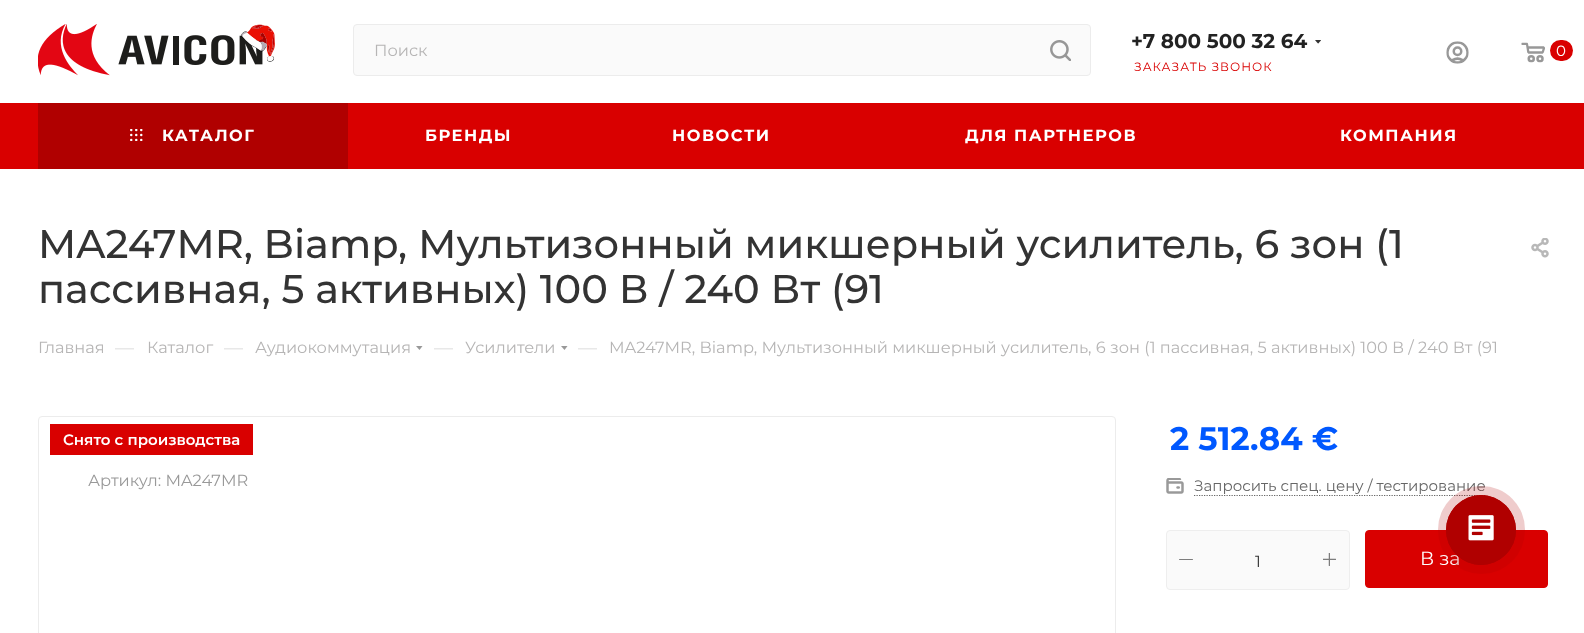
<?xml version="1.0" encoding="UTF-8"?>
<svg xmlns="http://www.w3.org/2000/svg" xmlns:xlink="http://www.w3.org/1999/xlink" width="1584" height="633">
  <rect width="100%" height="100%" fill="#ffffff" />
  <image x="38" y="24" width="237" height="52" xlink:href="image1.png" />
  <rect x="353.5" y="24.5" width="737" height="51" rx="3.5" fill="#fafafa" stroke="#ececec" />
  <image x="1050" y="40" width="21" height="21" xlink:href="image2.png" />
  <image x="1315" y="40" width="6" height="4" xlink:href="image3.png" />
  <image x="1446" y="41" width="23" height="23" xlink:href="image4.png" />
  <image x="1521" y="42" width="24" height="21" xlink:href="image5.png" />
  <rect x="1550" y="40" width="23" height="21" rx="10.5" fill="#d90000" />
  <rect y="103" width="1584" height="66" fill="#d90000" />
  <rect x="38" y="103" width="310" height="66" fill="#b00000" />
  <image x="130" y="129" width="13" height="12" xlink:href="image6.png" />
  <image x="1531" y="238" width="18" height="20" xlink:href="image7.png" />
  <path d="M 416 346 h 6.5 l -3 4 z" fill="#999999" fill-rule="evenodd" />
  <path d="M 561 346 h 6.5 l -3 4 z" fill="#999999" fill-rule="evenodd" />
  <rect x="38.5" y="416.5" width="1077" height="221" rx="3.5" fill="none" stroke="#ececec" />
  <rect x="50" y="424" width="203" height="31" fill="#d90000" />
  <image x="1166" y="478" width="18" height="16" xlink:href="image8.png" />
  <path d="M 1194 495.5 h 292" fill="none" stroke="#666666" stroke-width="1.2" stroke-dasharray="1.25 1.25" />
  <rect x="1166.5" y="530.5" width="183" height="59" rx="3.5" fill="#fafafa" stroke="#eeeeee" />
  <rect x="1179" y="559" width="14" height="1" rx="0.5" fill="#7d7d7d" />
  <image x="1323" y="553" width="13" height="13" xlink:href="image9.png" />
  <rect x="1365.5" y="530.5" width="182" height="57" rx="3.5" fill="#d90000" stroke="#d90000" />
  <text x="374" y="56" style="font-family: Montserrat; font-size: 16.25px; fill: #b6b5b5">Поиск</text>
  <text x="1131" y="48" style="font-family: Montserrat; font-size: 20px; font-weight: bold; fill: #222222">+7 800 500 32 64</text>
  <text x="1134" y="71" style="font-family: Montserrat; font-size: 12px; letter-spacing: 1px; fill: #d90000">ЗАКАЗАТЬ ЗВОНОК</text>
  <text x="1556" y="56" style="font-family: Montserrat; font-size: 15px; fill: #ffffff">0</text>
  <text x="162" y="141" style="font-family: Montserrat; font-size: 16.25px; font-weight: bold; letter-spacing: 1.5px; fill: #ffffff">КАТАЛОГ</text>
  <text x="425" y="141" style="font-family: Montserrat; font-size: 16.25px; font-weight: bold; letter-spacing: 1.5px; fill: #ffffff">БРЕНДЫ</text>
  <text x="672" y="141" style="font-family: Montserrat; font-size: 16.25px; font-weight: bold; letter-spacing: 1.5px; fill: #ffffff">НОВОСТИ</text>
  <text x="965" y="141" style="font-family: Montserrat; font-size: 16.25px; font-weight: bold; letter-spacing: 1.5px; fill: #ffffff">ДЛЯ ПАРТНЕРОВ</text>
  <text x="1340" y="141" style="font-family: Montserrat; font-size: 16.25px; font-weight: bold; letter-spacing: 1.5px; fill: #ffffff">КОМПАНИЯ</text>
  <text x="38" y="258" style="font-family: Montserrat; font-size: 40px; font-weight: 500; fill: #333333">MA247MR, Biamp, Мультизонный микшерный усилитель, 6 зон (1</text>
  <text x="38" y="303" style="font-family: Montserrat; font-size: 40px; font-weight: 500; fill: #333333">пассивная, 5 активных) 100 В / 240 Вт (91</text>
  <text x="38" y="353" style="font-family: Montserrat; font-size: 16.25px; fill: #b6b5b5">Главная</text>
  <text x="115" y="354" style="font-family: Montserrat; font-size: 19px; fill: #dddddd">—</text>
  <text x="147" y="353" style="font-family: Montserrat; font-size: 16.25px; fill: #b6b5b5">Каталог</text>
  <text x="224" y="354" style="font-family: Montserrat; font-size: 19px; fill: #dddddd">—</text>
  <text x="255" y="353" style="font-family: Montserrat; font-size: 16.25px; fill: #b6b5b5">Аудиокоммутация</text>
  <text x="434" y="354" style="font-family: Montserrat; font-size: 19px; fill: #dddddd">—</text>
  <text x="465" y="353" style="font-family: Montserrat; font-size: 16.25px; fill: #b6b5b5">Усилители</text>
  <text x="578" y="354" style="font-family: Montserrat; font-size: 19px; fill: #dddddd">—</text>
  <text x="609" y="353" style="font-family: Montserrat; font-size: 16.25px; fill: #b6b5b5">MA247MR, Biamp, Мультизонный микшерный усилитель, 6 зон (1 пассивная, 5 активных) 100 В / 240 Вт (91</text>
  <text x="63" y="445" style="font-family: Montserrat; font-size: 15px; font-weight: 600; fill: #ffffff">Снято с производства</text>
  <text x="88" y="486" style="font-family: Montserrat; font-size: 16.25px; fill: #999999">Артикул: MA247MR</text>
  <text x="1170" y="450" style="font-family: Montserrat; font-size: 32.5px; font-weight: bold; fill: #0058ff">2 512.84 €</text>
  <text x="1194" y="491" style="font-family: Montserrat; font-size: 15px; fill: #666666">Запросить спец. цену / тестирование</text>
  <text x="1255" y="567" style="font-family: Montserrat; font-size: 16px; fill: #333333">1</text>
  <text x="1420" y="565" style="font-family: Montserrat; font-size: 19px; fill: #ffffff">В за</text>
  <rect x="1438" y="486" width="87" height="88" rx="43.5" fill="#b00000" fill-opacity="0.2" />
  <circle cx="1481" cy="530" r="34.5" fill="none" stroke="#b00000" />
  <circle cx="1481" cy="530" r="35" fill="#b00000" />
  <image x="1468" y="515" width="26" height="26" xlink:href="image10.png" />
</svg>
